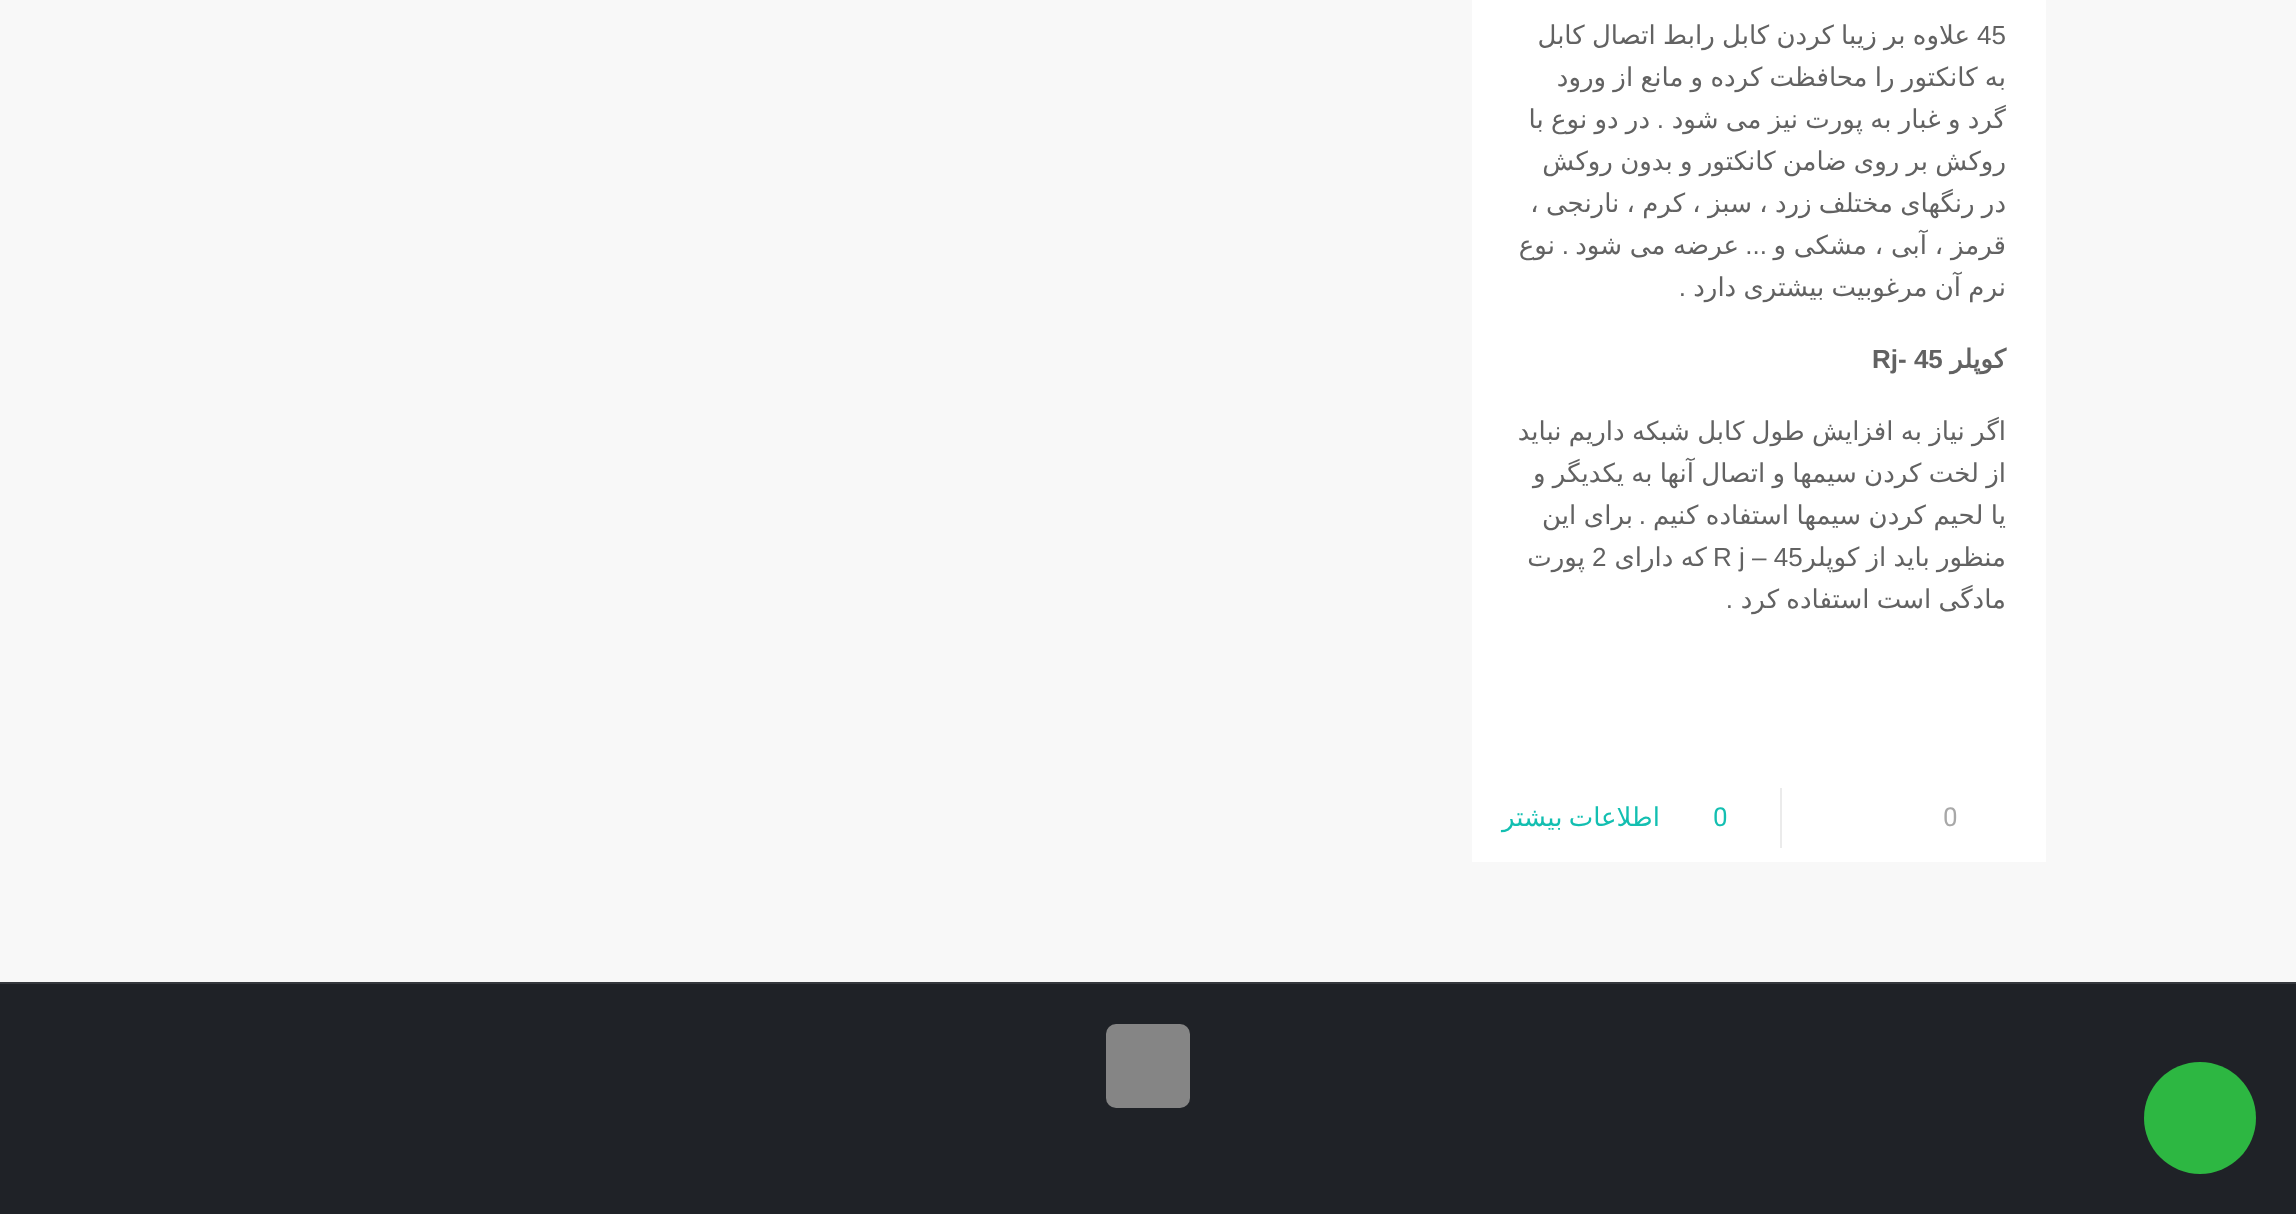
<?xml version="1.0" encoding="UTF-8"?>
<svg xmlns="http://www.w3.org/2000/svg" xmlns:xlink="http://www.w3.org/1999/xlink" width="2296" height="1214">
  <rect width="100%" height="100%" fill="#f8f8f8" />
  <rect x="1472" width="574" height="862" fill="#ffffff" />
  <rect x="1780" y="788" width="2" height="60" fill="#ebebeb" />
  <rect y="984" width="2296" height="230" fill="#1f2227" />
  <rect y="982" width="2296" height="2" fill="#35383d" />
  <rect x="1106" y="1024" width="84" height="84" rx="10" fill="#858585" />
  <circle cx="2200" cy="1118" r="56" fill="#2db742" />
  <text x="1977" y="44" style="font-family: Liberation Sans; font-size: 26px; fill: #626262">45</text>
  <text x="1970" y="44" word-spacing="-1" style="font-family: DejaVu Sans; font-size: 26px; direction: rtl; fill: #626262">علاوه بر زیبا کردن کابل رابط اتصال کابل</text>
  <text x="2006" y="86" word-spacing="-1" style="font-family: DejaVu Sans; font-size: 26px; direction: rtl; fill: #626262">به کانکتور را محافظت کرده و مانع از ورود</text>
  <text x="2006" y="128" word-spacing="-1" style="font-family: DejaVu Sans; font-size: 26px; direction: rtl; fill: #626262">گرد و غبار به پورت نیز می شود</text>
  <text x="1664" y="128" style="font-family: Liberation Sans; font-size: 26px; direction: rtl; fill: #626262">.</text>
  <text x="1650" y="128" word-spacing="-1" style="font-family: DejaVu Sans; font-size: 26px; direction: rtl; fill: #626262">در دو نوع با</text>
  <text x="2006" y="170" word-spacing="-1" style="font-family: DejaVu Sans; font-size: 26px; direction: rtl; fill: #626262">روکش بر روی ضامن کانکتور و بدون روکش</text>
  <text x="2006" y="212" word-spacing="-1" style="font-family: DejaVu Sans; font-size: 26px; direction: rtl; fill: #626262">در رنگهای مختلف زرد ، سبز ، کرم ، نارنجی ،</text>
  <text x="2006" y="254" word-spacing="-0.5" style="font-family: DejaVu Sans; font-size: 26px; direction: rtl; fill: #626262">قرمز ، آبی ، مشکی و</text>
  <text x="1767" y="254" style="font-family: Liberation Sans; font-size: 26px; direction: rtl; fill: #626262">...</text>
  <text x="1739" y="254" word-spacing="-0.5" style="font-family: DejaVu Sans; font-size: 26px; direction: rtl; fill: #626262">عرضه می شود</text>
  <text x="1569" y="254" style="font-family: Liberation Sans; font-size: 26px; direction: rtl; fill: #626262">.</text>
  <text x="1555" y="254" style="font-family: DejaVu Sans; font-size: 26px; direction: rtl; fill: #626262">نوع</text>
  <text x="2006" y="296" word-spacing="-1" style="font-family: DejaVu Sans; font-size: 26px; direction: rtl; fill: #626262">نرم آن مرغوبیت بیشتری دارد</text>
  <text x="1686" y="296" style="font-family: Liberation Sans; font-size: 26px; direction: rtl; fill: #626262">.</text>
  <text x="2006" y="368" style="font-family: DejaVu Sans; font-size: 26px; font-weight: bold; direction: rtl; fill: #626262">کوپلر</text>
  <text x="1872" y="368" style="font-family: Liberation Sans; font-size: 26px; font-weight: bold; fill: #626262">Rj- 45</text>
  <text x="2006" y="440" word-spacing="-1" style="font-family: DejaVu Sans; font-size: 26px; direction: rtl; fill: #626262">اگر نیاز به افزایش طول کابل شبکه داریم نباید</text>
  <text x="2006" y="482" word-spacing="-1" style="font-family: DejaVu Sans; font-size: 26px; direction: rtl; fill: #626262">از لخت کردن سیمها و اتصال آنها به یکدیگر و</text>
  <text x="2006" y="524" word-spacing="-0.75" style="font-family: DejaVu Sans; font-size: 26px; direction: rtl; fill: #626262">یا لحیم کردن سیمها استفاده کنیم</text>
  <text x="1646" y="524" style="font-family: Liberation Sans; font-size: 26px; direction: rtl; fill: #626262">.</text>
  <text x="1633" y="524" word-spacing="-0.75" style="font-family: DejaVu Sans; font-size: 26px; direction: rtl; fill: #626262">برای این</text>
  <text x="2006" y="566" word-spacing="-1" style="font-family: DejaVu Sans; font-size: 26px; direction: rtl; fill: #626262">منظور باید از کوپلر</text>
  <text x="1713" y="566" style="font-family: Liberation Sans; font-size: 26px; fill: #626262">R j – 45</text>
  <text x="1707" y="566" word-spacing="-1" style="font-family: DejaVu Sans; font-size: 26px; direction: rtl; fill: #626262">که دارای</text>
  <text x="1592" y="566" style="font-family: Liberation Sans; font-size: 26px; fill: #626262">2</text>
  <text x="1585" y="566" style="font-family: DejaVu Sans; font-size: 26px; direction: rtl; fill: #626262">پورت</text>
  <text x="2006" y="608" word-spacing="-1" style="font-family: DejaVu Sans; font-size: 26px; direction: rtl; fill: #626262">مادگی است استفاده کرد</text>
  <text x="1733" y="608" style="font-family: Liberation Sans; font-size: 26px; direction: rtl; fill: #626262">.</text>
  <text x="1943" y="826" style="font-family: Roboto; font-size: 26px; fill: #a8a8a8">0</text>
  <text x="1713" y="826" style="font-family: Roboto; font-size: 26px; fill: #13bfb1">0</text>
  <text x="1660" y="826" word-spacing="-2" style="font-family: DejaVu Sans; font-size: 26px; direction: rtl; fill: #13bfb1">اطلاعات بیشتر</text>
</svg>
